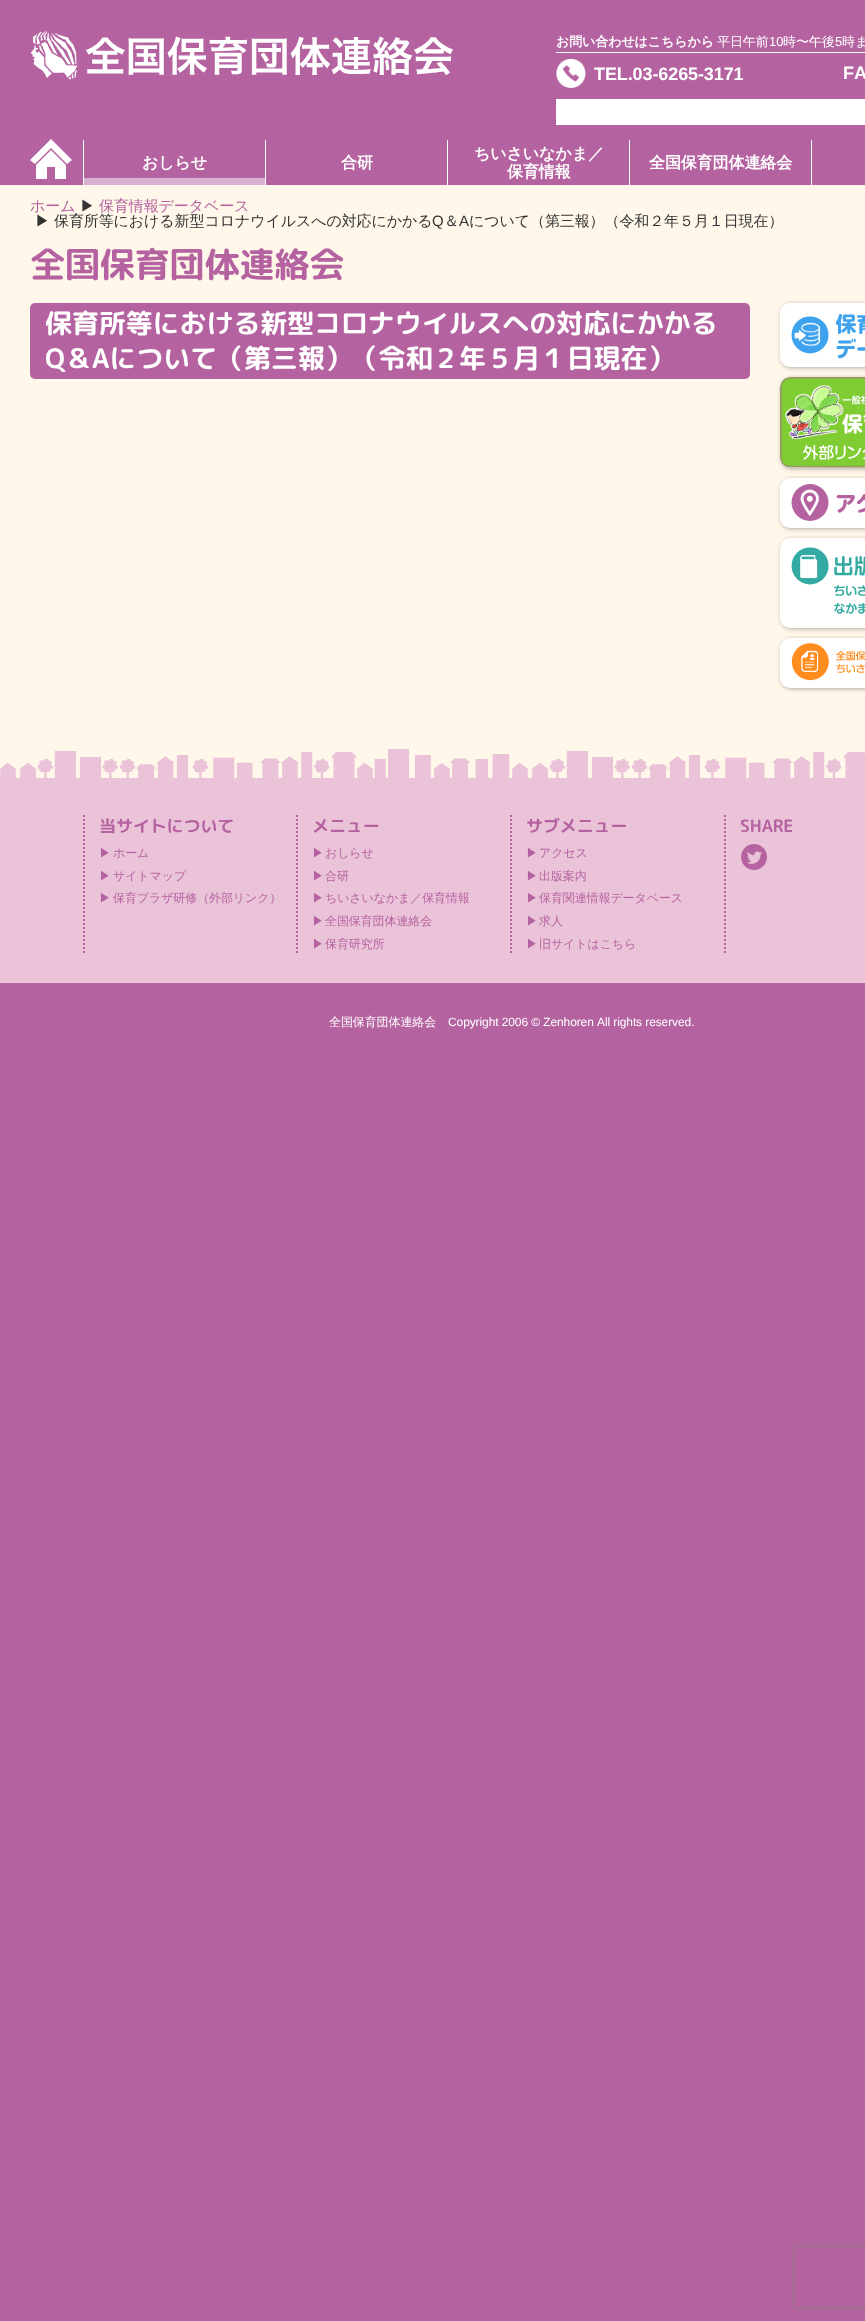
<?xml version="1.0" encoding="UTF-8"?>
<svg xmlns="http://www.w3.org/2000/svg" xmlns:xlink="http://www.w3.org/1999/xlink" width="865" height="2321">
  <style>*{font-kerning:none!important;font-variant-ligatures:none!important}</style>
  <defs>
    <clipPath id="clip1"><path d="M 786 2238 h 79 v 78 h -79 z m 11 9 h 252 c 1 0 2 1 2 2 v 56 c 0 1 -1 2 -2 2 h -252 c -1 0 -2 -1 -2 -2 v -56 c 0 -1 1 -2 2 -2 z" clip-rule="evenodd" /></clipPath>
  </defs>
  <rect width="100%" height="100%" fill="#b563a0" />
  <rect y="185" width="865" height="563" fill="#fff7e9" />
  <image x="31" y="30" width="422" height="50" xlink:href="image1.png" />
  <rect x="556" y="52" width="309" height="1" fill="#ffffff" />
  <image x="556" y="58" width="30" height="30" xlink:href="image2.png" />
  <rect x="556" y="99" width="309" height="26" fill="#ffffff" />
  <rect x="83" y="140" width="1" height="45" fill="#ffffff" />
  <path d="M 51 148 l -16 16 l -5 -4 l 21 -21 l 21 21 l -5 4 z m 0 2 l -15 15 v 14 h 11 v -12 h 8 v 12 h 11 v -14 z" fill="#ffffff" />
  <rect x="265" y="140" width="1" height="45" fill="#ffffff" />
  <rect x="84" y="178" width="181" height="7" fill="#dab1d0" />
  <rect x="447" y="140" width="1" height="45" fill="#ffffff" />
  <rect x="629" y="140" width="1" height="45" fill="#ffffff" />
  <rect x="811" y="140" width="1" height="45" fill="#ffffff" />
  <rect x="30" y="303" width="720" height="76" rx="5" fill="#b563a0" />
  <rect x="781" y="304" width="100" height="64" rx="10" fill="#000000" fill-opacity="0.3" filter="blur(2px)" />
  <rect x="780" y="303" width="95" height="64" rx="10" fill="#ffffff" />
  <image x="791" y="314" width="74" height="45" xlink:href="image3.png" />
  <rect x="781" y="378" width="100" height="91" rx="10" fill="#000000" fill-opacity="0.3" filter="blur(2px)" />
  <rect x="780" y="377" width="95" height="91" rx="10" fill="#ffffff" />
  <image x="780" y="377" width="85" height="91" xlink:href="image4.png" />
  <rect x="781" y="479" width="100" height="50" rx="10" fill="#000000" fill-opacity="0.3" filter="blur(2px)" />
  <rect x="780" y="478" width="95" height="50" rx="10" fill="#ffffff" />
  <image x="791" y="484" width="74" height="37" xlink:href="image5.png" />
  <rect x="781" y="539" width="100" height="90" rx="10" fill="#000000" fill-opacity="0.3" filter="blur(2px)" />
  <rect x="780" y="538" width="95" height="90" rx="10" fill="#ffffff" />
  <image x="791" y="547" width="74" height="67" xlink:href="image6.png" />
  <rect x="781" y="639" width="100" height="50" rx="10" fill="#000000" fill-opacity="0.3" filter="blur(2px)" />
  <rect x="780" y="638" width="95" height="50" rx="10" fill="#ffffff" />
  <image x="791" y="643" width="74" height="38" xlink:href="image7.png" />
  <rect y="778" width="865" height="205" fill="#ebc3d9" />
  <image x="0" y="748" width="865" height="30" xlink:href="image8.png" />
  <path d="M 297 815 v 138" fill="none" stroke="#b563a0" stroke-width="2" stroke-dasharray="2 2" />
  <path d="M 84 815 v 138" fill="none" stroke="#b563a0" stroke-width="2" stroke-dasharray="2 2" />
  <path d="M 511 815 v 138" fill="none" stroke="#b563a0" stroke-width="2" stroke-dasharray="2 2" />
  <path d="M 725 815 v 138" fill="none" stroke="#b563a0" stroke-width="2" stroke-dasharray="2 2" />
  <image x="741" y="844" width="26" height="26" xlink:href="image9.png" />
  <g clip-path="url(#clip1)">
    <rect x="795" y="2247" width="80" height="60" rx="2" fill="#808080" filter="blur(2.5px)" />
  </g>
  <text x="556" y="46" style="font-family: WenQuanYi Zen Hei; font-size: 13px; font-weight: bold; letter-spacing: -0.1px; fill: #ffffff">お問い合わせはこちらから</text>
  <text x="717" y="46" style="font-family: WenQuanYi Zen Hei; font-size: 13px; font-weight: 500; letter-spacing: -0.1px; fill: #ffffff">平日午前</text>
  <text x="769" y="46" style="font-family: Liberation Sans; font-size: 13px; letter-spacing: -0.1px; fill: #ffffff">10</text>
  <text x="783" y="46" style="font-family: WenQuanYi Zen Hei; font-size: 13px; font-weight: 500; letter-spacing: -0.1px; fill: #ffffff">時〜午後</text>
  <text x="835" y="46" style="font-family: Liberation Sans; font-size: 13px; letter-spacing: -0.1px; fill: #ffffff">5</text>
  <text x="842" y="46" style="font-family: WenQuanYi Zen Hei; font-size: 13px; font-weight: 500; letter-spacing: -0.1px; fill: #ffffff">時ま</text>
  <text x="594" y="80" style="font-family: Liberation Sans; font-size: 18px; font-weight: bold; letter-spacing: -0.1px; fill: #ffffff">TEL.03-6265-3171</text>
  <text x="843" y="79" style="font-family: Liberation Sans; font-size: 18px; font-weight: bold; letter-spacing: -0.1px; fill: #ffffff">FA</text>
  <text x="142" y="168" style="font-family: WenQuanYi Zen Hei; font-size: 16px; font-weight: bold; letter-spacing: -0.1px; fill: #ffffff">おしらせ</text>
  <text x="341" y="168" style="font-family: WenQuanYi Zen Hei; font-size: 16px; font-weight: bold; letter-spacing: -0.1px; fill: #ffffff">合研</text>
  <text x="474" y="159" style="font-family: WenQuanYi Zen Hei; font-size: 16px; font-weight: bold; letter-spacing: -0.1px; fill: #ffffff">ちいさいなかま／</text>
  <text x="507" y="177" style="font-family: WenQuanYi Zen Hei; font-size: 16px; font-weight: bold; letter-spacing: -0.1px; fill: #ffffff">保育情報</text>
  <text x="649" y="168" style="font-family: WenQuanYi Zen Hei; font-size: 16px; font-weight: bold; letter-spacing: -0.1px; fill: #ffffff">全国保育団体連絡会</text>
  <text x="30" y="211" style="font-family: WenQuanYi Zen Hei; font-size: 15px; font-weight: 500; letter-spacing: -0.1px; fill: #b563a0">ホーム</text>
  <text x="80" y="211" style="font-family: WenQuanYi Zen Hei; font-size: 15px; font-weight: 500; letter-spacing: -0.1px; fill: #333333">▶︎</text>
  <text x="99" y="211" style="font-family: WenQuanYi Zen Hei; font-size: 15px; font-weight: 500; letter-spacing: -0.1px; fill: #b563a0">保育情報データベース</text>
  <text x="35" y="226" style="font-family: WenQuanYi Zen Hei; font-size: 15px; font-weight: 500; letter-spacing: -0.1px; fill: #333333">▶︎</text>
  <text x="54" y="226" style="font-family: WenQuanYi Zen Hei; font-size: 15px; font-weight: 500; letter-spacing: -0.1px; fill: #333333">保育所等における新型コロナウイルスへの対応にかかる</text>
  <text x="432" y="226" style="font-family: Liberation Sans; font-size: 15px; letter-spacing: -0.1px; fill: #333333">Q</text>
  <text x="444" y="226" style="font-family: WenQuanYi Zen Hei; font-size: 15px; font-weight: 500; letter-spacing: -0.1px; fill: #333333">＆</text>
  <text x="459" y="226" style="font-family: Liberation Sans; font-size: 15px; letter-spacing: -0.1px; fill: #333333">A</text>
  <text x="469" y="226" style="font-family: WenQuanYi Zen Hei; font-size: 15px; font-weight: 500; letter-spacing: -0.1px; fill: #333333">について（第三報）（令和２年５月１日現在）</text>
  <text x="30" y="277" style="font-family: 'Rounded Mplus 1c Bold'; font-size: 35px; font-weight: bold; letter-spacing: -0.1px; fill: #b563a0">全国保育団体連絡会</text>
  <text x="45" y="333" style="font-family: 'Rounded Mplus 1c Bold'; font-size: 27px; font-weight: bold; letter-spacing: -0.1px; fill: #ffffff">保育所等における新型コロナウイルスへの対応にかかる</text>
  <text x="45" y="368" style="font-family: 'Rounded Mplus 1c Bold'; font-size: 27px; font-weight: bold; letter-spacing: -0.1px; fill: #ffffff">Q＆Aについて（第三報）（令和２年５月１日現在）</text>
  <text x="99" y="832" style="font-family: 'Rounded Mplus 1c Bold'; font-size: 17px; font-weight: bold; letter-spacing: -0.1px; fill: #b563a0">当サイトについて</text>
  <text x="99" y="857" style="font-family: WenQuanYi Zen Hei; font-size: 12px; font-weight: 500; letter-spacing: -0.1px; fill: #b563a0">▶︎</text>
  <text x="113" y="857" style="font-family: WenQuanYi Zen Hei; font-size: 12px; font-weight: 500; letter-spacing: -0.1px; fill: #b563a0">ホーム</text>
  <text x="99" y="880" style="font-family: WenQuanYi Zen Hei; font-size: 12px; font-weight: 500; letter-spacing: -0.1px; fill: #b563a0">▶︎</text>
  <text x="113" y="880" style="font-family: WenQuanYi Zen Hei; font-size: 12px; font-weight: 500; letter-spacing: -0.1px; fill: #b563a0">サイトマップ</text>
  <text x="99" y="902" style="font-family: WenQuanYi Zen Hei; font-size: 12px; font-weight: 500; letter-spacing: -0.1px; fill: #b563a0">▶︎</text>
  <text x="113" y="902" style="font-family: WenQuanYi Zen Hei; font-size: 12px; font-weight: 500; letter-spacing: -0.1px; fill: #b563a0">保育プラザ研修（外部リンク）</text>
  <text x="312" y="832" style="font-family: 'Rounded Mplus 1c Bold'; font-size: 17px; font-weight: bold; letter-spacing: -0.1px; fill: #b563a0">メニュー</text>
  <text x="312" y="857" style="font-family: WenQuanYi Zen Hei; font-size: 12px; font-weight: 500; letter-spacing: -0.1px; fill: #b563a0">▶︎</text>
  <text x="325" y="857" style="font-family: WenQuanYi Zen Hei; font-size: 12px; font-weight: 500; letter-spacing: -0.1px; fill: #b563a0">おしらせ</text>
  <text x="312" y="880" style="font-family: WenQuanYi Zen Hei; font-size: 12px; font-weight: 500; letter-spacing: -0.1px; fill: #b563a0">▶︎</text>
  <text x="325" y="880" style="font-family: WenQuanYi Zen Hei; font-size: 12px; font-weight: 500; letter-spacing: -0.1px; fill: #b563a0">合研</text>
  <text x="312" y="902" style="font-family: WenQuanYi Zen Hei; font-size: 12px; font-weight: 500; letter-spacing: -0.1px; fill: #b563a0">▶︎</text>
  <text x="325" y="902" style="font-family: WenQuanYi Zen Hei; font-size: 12px; font-weight: 500; letter-spacing: -0.1px; fill: #b563a0">ちいさいなかま／保育情報</text>
  <text x="312" y="925" style="font-family: WenQuanYi Zen Hei; font-size: 12px; font-weight: 500; letter-spacing: -0.1px; fill: #b563a0">▶︎</text>
  <text x="325" y="925" style="font-family: WenQuanYi Zen Hei; font-size: 12px; font-weight: 500; letter-spacing: -0.1px; fill: #b563a0">全国保育団体連絡会</text>
  <text x="312" y="948" style="font-family: WenQuanYi Zen Hei; font-size: 12px; font-weight: 500; letter-spacing: -0.1px; fill: #b563a0">▶︎</text>
  <text x="325" y="948" style="font-family: WenQuanYi Zen Hei; font-size: 12px; font-weight: 500; letter-spacing: -0.1px; fill: #b563a0">保育研究所</text>
  <text x="526" y="832" style="font-family: 'Rounded Mplus 1c Bold'; font-size: 17px; font-weight: bold; letter-spacing: -0.1px; fill: #b563a0">サブメニュー</text>
  <text x="526" y="857" style="font-family: WenQuanYi Zen Hei; font-size: 12px; font-weight: 500; letter-spacing: -0.1px; fill: #b563a0">▶︎</text>
  <text x="539" y="857" style="font-family: WenQuanYi Zen Hei; font-size: 12px; font-weight: 500; letter-spacing: -0.1px; fill: #b563a0">アクセス</text>
  <text x="526" y="880" style="font-family: WenQuanYi Zen Hei; font-size: 12px; font-weight: 500; letter-spacing: -0.1px; fill: #b563a0">▶︎</text>
  <text x="539" y="880" style="font-family: WenQuanYi Zen Hei; font-size: 12px; font-weight: 500; letter-spacing: -0.1px; fill: #b563a0">出版案内</text>
  <text x="526" y="902" style="font-family: WenQuanYi Zen Hei; font-size: 12px; font-weight: 500; letter-spacing: -0.1px; fill: #b563a0">▶︎</text>
  <text x="539" y="902" style="font-family: WenQuanYi Zen Hei; font-size: 12px; font-weight: 500; letter-spacing: -0.1px; fill: #b563a0">保育関連情報データベース</text>
  <text x="526" y="925" style="font-family: WenQuanYi Zen Hei; font-size: 12px; font-weight: 500; letter-spacing: -0.1px; fill: #b563a0">▶︎</text>
  <text x="539" y="925" style="font-family: WenQuanYi Zen Hei; font-size: 12px; font-weight: 500; letter-spacing: -0.1px; fill: #b563a0">求人</text>
  <text x="526" y="948" style="font-family: WenQuanYi Zen Hei; font-size: 12px; font-weight: 500; letter-spacing: -0.1px; fill: #b563a0">▶︎</text>
  <text x="539" y="948" style="font-family: WenQuanYi Zen Hei; font-size: 12px; font-weight: 500; letter-spacing: -0.1px; fill: #b563a0">旧サイトはこちら</text>
  <text x="740" y="832" style="font-family: 'Rounded Mplus 1c Bold'; font-size: 17px; font-weight: bold; letter-spacing: -0.1px; fill: #b563a0">SHARE</text>
  <text x="329" y="1026" style="font-family: WenQuanYi Zen Hei; font-size: 12px; font-weight: 500; letter-spacing: -0.1px; fill: #ffffff">全国保育団体連絡会</text>
  <text x="448" y="1026" style="font-family: Liberation Sans; font-size: 12px; letter-spacing: -0.1px; fill: #ffffff">Copyright 2006 © Zenhoren All rights reserved.</text>
</svg>
